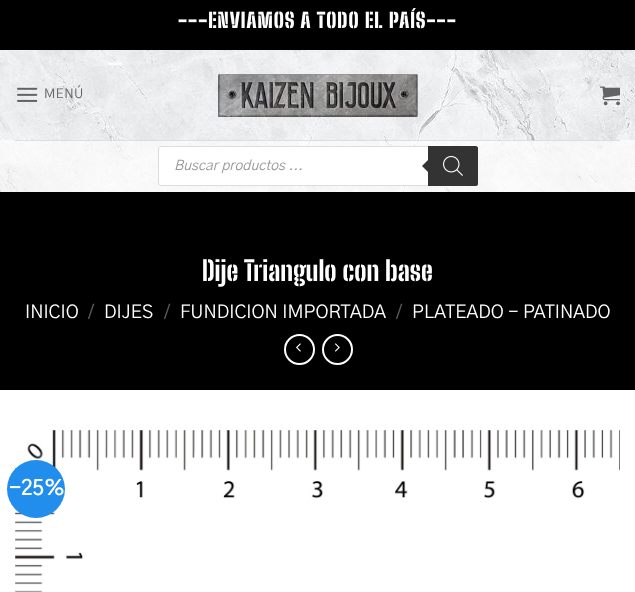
<?xml version="1.0" encoding="UTF-8"?>
<svg xmlns="http://www.w3.org/2000/svg" xmlns:xlink="http://www.w3.org/1999/xlink" width="635" height="592">
  <rect width="100%" height="100%" fill="#ffffff" />
  <rect width="635" height="50" fill="#000000" />
  <image x="0" y="50" width="635" height="142" xlink:href="image1.png" />
  <image x="17" y="87" width="21" height="15" xlink:href="image2.png" />
  <image x="218" y="74" width="200" height="43" xlink:href="image3.png" />
  <image x="600" y="86" width="20" height="20" xlink:href="image4.png" />
  <rect y="140" width="635" height="52" fill="#ffffff" fill-opacity="0.59" />
  <rect x="15" y="140" width="605" height="1" fill="#000000" fill-opacity="0.1" />
  <rect x="158.5" y="146.5" width="319" height="39" rx="2.5" fill="#ffffff" stroke="#dddddd" />
  <path d="M 428 146 h 48 c 1 0 2 1 2 2 v 36 c 0 1 -1 2 -2 2 h -48 z" fill="#333333" />
  <path d="M 430 158 v 16 l -8 -8 z" fill="#333333" />
  <image x="443" y="156" width="20" height="20" xlink:href="image5.png" />
  <rect y="192" width="635" height="198" fill="#000000" />
  <circle cx="299.5" cy="349.5" r="14.5" fill="none" stroke="#ffffff" stroke-width="2" />
  <image x="296" y="343" width="5" height="9" xlink:href="image6.png" />
  <circle cx="337.5" cy="349.5" r="14.5" fill="none" stroke="#ffffff" stroke-width="2" />
  <image x="335" y="343" width="5" height="9" xlink:href="image7.png" />
  <image x="15" y="430" width="605" height="162" xlink:href="image8.png" />
  <circle cx="36" cy="489" r="29" fill="#218ded" />
  <text x="178" y="28" style="font-family: Big Shoulders Stencil Display; font-size: 20.4px; font-weight: 900; letter-spacing: 1px; fill: #ffffff">---ENVIAMOS A TODO EL PAÍS---</text>
  <text x="44" y="98" style="font-family: 'Gothic A1'; font-size: 13px; letter-spacing: 0.5px; fill: #626262">MENÚ</text>
  <text x="174" y="170" style="font-family: 'Gothic A1'; font-size: 14px; font-style: italic; fill: #999999">Buscar productos ...</text>
  <text x="202" y="281" style="font-family: Big Shoulders Stencil Display; font-size: 27.25px; font-weight: 800; fill: #ffffff">Dije Triangulo con base</text>
  <text x="25" y="318" style="font-family: 'Gothic A1'; font-size: 18.4px; fill: #ffffff">INICIO</text>
  <text x="88" y="318" style="font-family: 'Gothic A1'; font-size: 18.4px; fill: #595959">/</text>
  <text x="104" y="318" style="font-family: 'Gothic A1'; font-size: 18.4px; fill: #ffffff">DIJES</text>
  <text x="164" y="318" style="font-family: 'Gothic A1'; font-size: 18.4px; fill: #595959">/</text>
  <text x="180" y="318" style="font-family: 'Gothic A1'; font-size: 18.4px; fill: #ffffff">FUNDICION IMPORTADA</text>
  <text x="396" y="318" style="font-family: 'Gothic A1'; font-size: 18.4px; fill: #595959">/</text>
  <text x="412" y="318" style="font-family: 'Gothic A1'; font-size: 18.4px; fill: #ffffff">PLATEADO - PATINADO</text>
  <text x="9" y="495" style="font-family: 'Gothic A1'; font-size: 21px; font-weight: bold; fill: #ffffff">-25%</text>
</svg>
